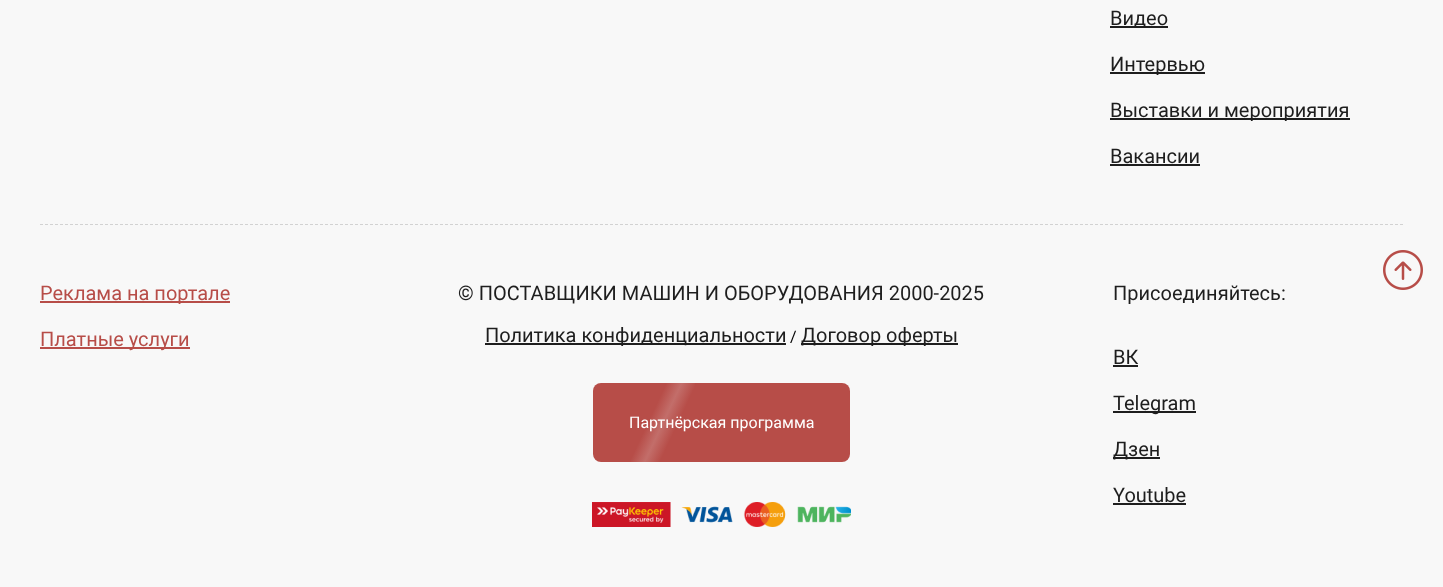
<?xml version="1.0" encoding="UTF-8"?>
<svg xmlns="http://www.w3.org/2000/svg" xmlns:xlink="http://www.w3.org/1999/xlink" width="1443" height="587">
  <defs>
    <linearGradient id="g1" gradientUnits="userSpaceOnUse" x1="717" y1="445" x2="621" y2="400"><stop offset="0" stop-color="#000000" stop-opacity="0" /><stop offset="0.42" stop-color="#f1f1f1" stop-opacity="0" /><stop offset="0.55" stop-color="#f1f1f1" stop-opacity="0.2" /><stop offset="0.68" stop-color="#f1f1f1" stop-opacity="0" /><stop offset="1" stop-color="#000000" stop-opacity="0" /></linearGradient>
  </defs>
  <rect width="100%" height="100%" fill="#f8f8f8" />
  <path d="M 40 224.5 h 1363" fill="none" stroke="#d2d2d2" stroke-dasharray="3 2" />
  <rect x="1110" y="26" width="58" height="2" fill="#1e1e1e" />
  <rect x="1110" y="72" width="95" height="2" fill="#1e1e1e" />
  <rect x="1110" y="118" width="240" height="2" fill="#1e1e1e" />
  <rect x="1110" y="164" width="90" height="2" fill="#1e1e1e" />
  <rect x="40" y="301" width="190" height="2" fill="#b74d48" />
  <rect x="40" y="347" width="150" height="2" fill="#b74d48" />
  <rect x="485" y="343" width="301" height="2" fill="#1e1e1e" />
  <rect x="801" y="343" width="157" height="2" fill="#1e1e1e" />
  <rect x="593" y="383" width="257" height="79" rx="8" fill="#b74d48" />
  <rect x="631" y="383" width="64" height="79" fill="url(#g1)" />
  <image x="592" y="502" width="259" height="25" xlink:href="image1.png" />
  <rect x="1113" y="365" width="25" height="2" fill="#1e1e1e" />
  <rect x="1113" y="411" width="83" height="2" fill="#1e1e1e" />
  <rect x="1113" y="457" width="47" height="2" fill="#1e1e1e" />
  <rect x="1113" y="503" width="73" height="2" fill="#1e1e1e" />
  <image x="1383" y="250" width="40" height="40" xlink:href="image2.png" />
  <text x="1110" y="25" style="font-family: Roboto; font-size: 20px; fill: #1e1e1e">Видео</text>
  <text x="1110" y="71" style="font-family: Roboto; font-size: 20px; fill: #1e1e1e">Интервью</text>
  <text x="1110" y="117" style="font-family: Roboto; font-size: 20px; fill: #1e1e1e">Выставки и мероприятия</text>
  <text x="1110" y="163" style="font-family: Roboto; font-size: 20px; fill: #1e1e1e">Вакансии</text>
  <text x="40" y="300" style="font-family: Roboto; font-size: 20px; fill: #b74d48">Реклама на портале</text>
  <text x="40" y="346" style="font-family: Roboto; font-size: 20px; fill: #b74d48">Платные услуги</text>
  <text x="458" y="300" style="font-family: Roboto; font-size: 20px; fill: #1e1e1e">© ПОСТАВЩИКИ МАШИН И ОБОРУДОВАНИЯ 2000-2025</text>
  <text x="485" y="342" style="font-family: Roboto; font-size: 20px; fill: #1e1e1e">Политика конфиденциальности</text>
  <text x="790" y="342" style="font-family: Roboto; font-size: 16px; fill: #000000">/</text>
  <text x="801" y="342" style="font-family: Roboto; font-size: 20px; fill: #1e1e1e">Договор оферты</text>
  <text x="629" y="428" style="font-family: Roboto; font-size: 16px; fill: #ffffff">Партнёрская программа</text>
  <text x="1113" y="300" style="font-family: Roboto; font-size: 20px; fill: #1e1e1e">Присоединяйтесь:</text>
  <text x="1113" y="364" style="font-family: Roboto; font-size: 20px; fill: #1e1e1e">ВК</text>
  <text x="1113" y="410" style="font-family: Roboto; font-size: 20px; fill: #1e1e1e">Telegram</text>
  <text x="1113" y="456" style="font-family: Roboto; font-size: 20px; fill: #1e1e1e">Дзен</text>
  <text x="1113" y="502" style="font-family: Roboto; font-size: 20px; fill: #1e1e1e">Youtube</text>
</svg>
